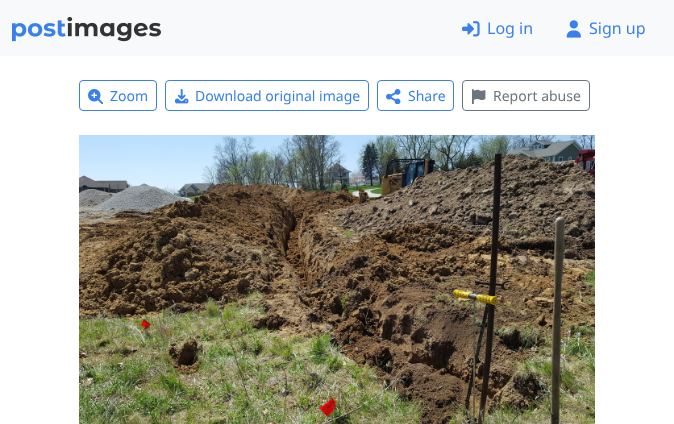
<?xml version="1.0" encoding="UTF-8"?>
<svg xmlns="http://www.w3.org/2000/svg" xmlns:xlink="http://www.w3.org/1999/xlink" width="674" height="424">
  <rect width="100%" height="100%" fill="#ffffff" />
  <rect width="674" height="56" fill="#f8f9fa" />
  <image x="12" y="17" width="149" height="25" xlink:href="image1.png" />
  <image x="462" y="21" width="18" height="16" xlink:href="image2.png" />
  <image x="566" y="20" width="15" height="18" xlink:href="image3.png" />
  <rect x="79.5" y="80.5" width="77" height="30" rx="3.5" fill="none" stroke="#3a80ea" />
  <image x="88" y="89" width="15" height="15" xlink:href="image4.png" />
  <rect x="165.5" y="80.5" width="203" height="30" rx="3.5" fill="none" stroke="#3a80ea" />
  <image x="174" y="89" width="15" height="15" xlink:href="image5.png" />
  <rect x="377.5" y="80.5" width="76" height="30" rx="3.5" fill="none" stroke="#3a80ea" />
  <image x="386" y="89" width="15" height="15" xlink:href="image6.png" />
  <rect x="462.5" y="80.5" width="127" height="30" rx="3.5" fill="none" stroke="#6c757d" />
  <image x="471" y="89" width="15" height="15" xlink:href="image7.png" />
  <image x="79" y="135" width="516" height="289" xlink:href="image8.png" />
  <text x="487" y="34" style="font-family: Noto Sans; font-size: 16px; fill: #3a80ea">Log in</text>
  <text x="589" y="34" style="font-family: Noto Sans; font-size: 16px; fill: #3a80ea">Sign up</text>
  <text x="110" y="101" style="font-family: Noto Sans; font-size: 14px; fill: #3a80ea">Zoom</text>
  <text x="195" y="101" style="font-family: Noto Sans; font-size: 14px; fill: #3a80ea">Download original image</text>
  <text x="408" y="101" style="font-family: Noto Sans; font-size: 14px; fill: #3a80ea">Share</text>
  <text x="493" y="101" style="font-family: Noto Sans; font-size: 14px; fill: #6c757d">Report abuse</text>
</svg>
